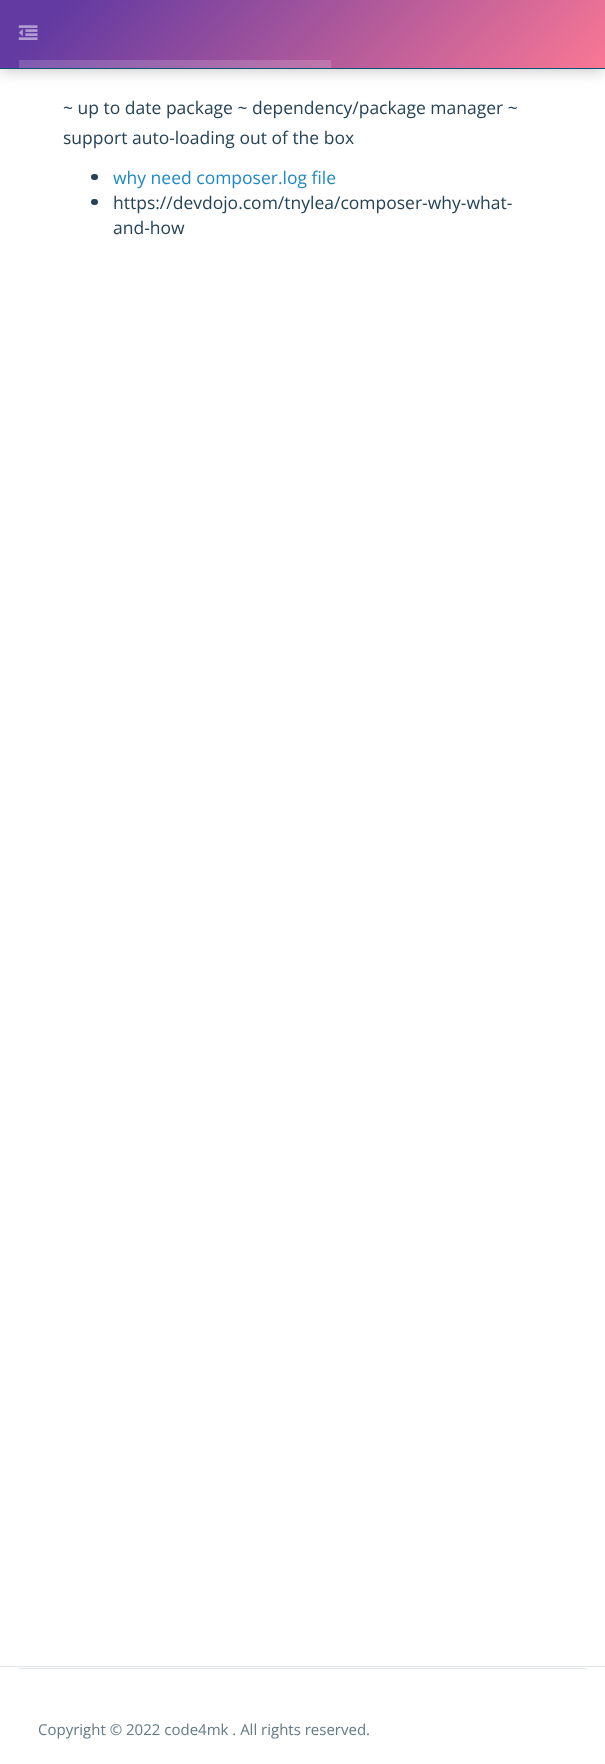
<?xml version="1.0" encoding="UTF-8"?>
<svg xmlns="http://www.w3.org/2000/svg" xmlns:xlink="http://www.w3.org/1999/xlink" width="605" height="1764">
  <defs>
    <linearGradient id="g1" gradientUnits="userSpaceOnUse" x1="134" y1="-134" x2="471" y2="202"><stop offset="0.1" stop-color="#623aa2" /><stop offset="1" stop-color="#f97794" /></linearGradient>
  </defs>
  <rect width="100%" height="100%" fill="#ffffff" />
  <rect y="1" width="605" height="69" fill="#000000" fill-opacity="0.24" filter="blur(8px)" />
  <rect y="68" width="605" height="1" fill="#0c5176" />
  <rect width="605" height="68" fill="url(#g1)" />
  <image x="18" y="25" width="20" height="15" xlink:href="image1.png" />
  <rect x="19" y="60" width="312" height="8" fill="#ffffff" fill-opacity="0.17" />
  <rect x="91" y="174" width="7" height="6" rx="3" fill="#254356" />
  <rect x="91" y="199" width="7" height="6" rx="3" fill="#254356" />
  <rect y="1666" width="605" height="1" fill="#e0e4e7" />
  <rect x="19" y="1668" width="567" height="1" fill="#e0e4e7" />
  <text x="63" y="114" style="font-family: Open Sans; font-size: 17.5px; fill: #254356">~ up to date package ~ dependency/package manager ~</text>
  <text x="63" y="144" style="font-family: Open Sans; font-size: 17.5px; fill: #254356">support auto-loading out of the box</text>
  <text x="113" y="184" style="font-family: Open Sans; font-size: 17.5px; fill: #2089c4">why need composer.log file</text>
  <text x="113" y="209" style="font-family: Open Sans; font-size: 17.5px; fill: #254356">https://devdojo.com/tnylea/composer-why-what-</text>
  <text x="113" y="234" style="font-family: Open Sans; font-size: 17.5px; fill: #254356">and-how</text>
  <text x="38" y="1735" style="font-family: Open Sans; font-size: 15px; fill: #637986">Copyright © 2022 code4mk . All rights reserved.</text>
</svg>
